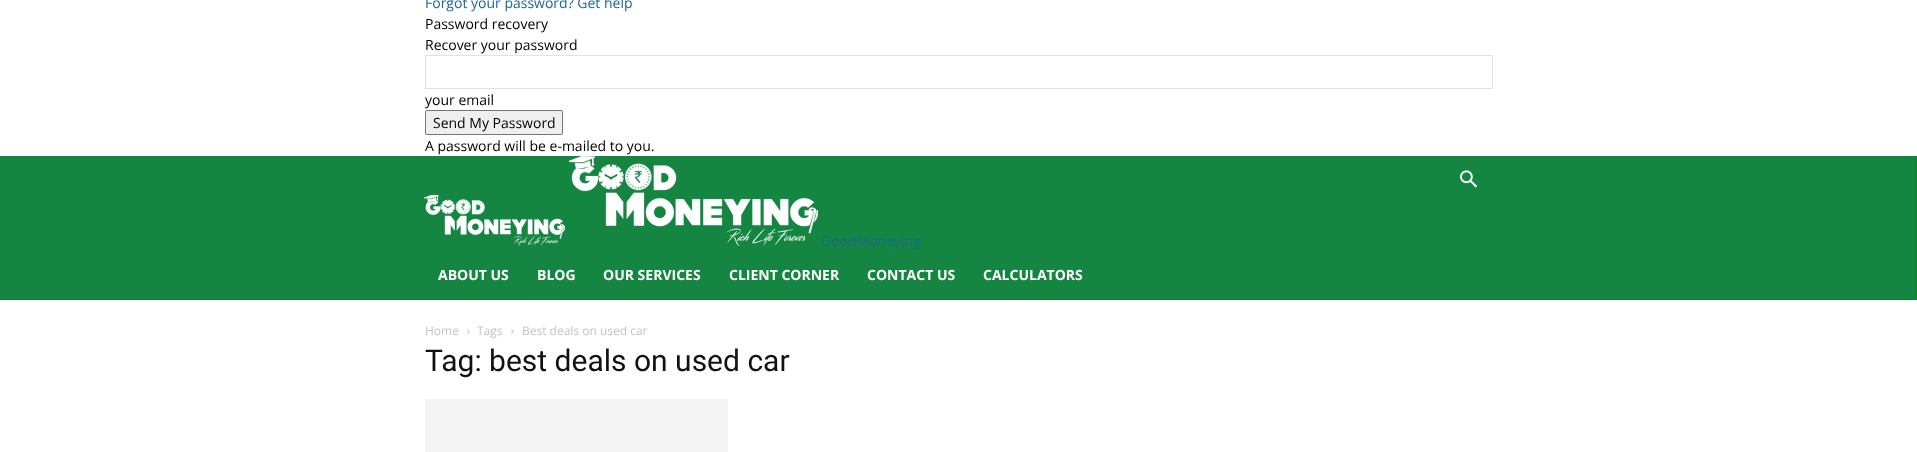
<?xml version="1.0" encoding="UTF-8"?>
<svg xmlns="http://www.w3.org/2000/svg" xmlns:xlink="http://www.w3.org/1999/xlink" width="1917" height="452">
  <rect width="100%" height="100%" fill="#ffffff" />
  <rect x="425.5" y="55.5" width="1067" height="33" fill="none" stroke="#e1e1e1" />
  <rect x="425.5" y="110.5" width="137" height="24" rx="1.5" fill="#efefef" stroke="#767676" />
  <rect y="156" width="1916" height="143" fill="#148642" />
  <rect x="1916" y="156" width="1" height="144" fill="#0a851b" />
  <rect y="299" width="1917" height="1" fill="#0a851b" />
  <image x="1460" y="170" width="17" height="18" xlink:href="image1.png" />
  <image x="424" y="195" width="141" height="51" xlink:href="image2.png" />
  <image x="569" y="156" width="249" height="90" xlink:href="image3.png" />
  <image x="467" y="329" width="3" height="5" xlink:href="image4.png" />
  <image x="511" y="329" width="3" height="5" xlink:href="image4.png" />
  <rect x="425" y="399" width="303" height="53" fill="#f3f3f3" />
  <text x="425" y="8" style="font-family: Open Sans; font-size: 14px; fill: #206494">Forgot your password? Get help</text>
  <text x="425" y="29" style="font-family: Open Sans; font-size: 14px; fill: #000000">Password recovery</text>
  <text x="425" y="50" style="font-family: Open Sans; font-size: 14px; fill: #000000">Recover your password</text>
  <text x="425" y="105" style="font-family: Open Sans; font-size: 14px; fill: #000000">your email</text>
  <text x="433" y="128" style="font-family: Open Sans; font-size: 14px; fill: #000000">Send My Password</text>
  <text x="425" y="151" style="font-family: Open Sans; font-size: 14px; fill: #000000">A password will be e-mailed to you.</text>
  <text x="821" y="246" style="font-family: Open Sans; font-size: 14px; fill: #206494">GoodMoneying</text>
  <text x="438" y="280" style="font-family: Open Sans; font-size: 14px; font-weight: bold; fill: #ffffff">ABOUT US</text>
  <text x="537" y="280" style="font-family: Open Sans; font-size: 14px; font-weight: bold; fill: #ffffff">BLOG</text>
  <text x="603" y="280" style="font-family: Open Sans; font-size: 14px; font-weight: bold; fill: #ffffff">OUR SERVICES</text>
  <text x="729" y="280" style="font-family: Open Sans; font-size: 14px; font-weight: bold; fill: #ffffff">CLIENT CORNER</text>
  <text x="867" y="280" style="font-family: Open Sans; font-size: 14px; font-weight: bold; fill: #ffffff">CONTACT US</text>
  <text x="983" y="280" style="font-family: Open Sans; font-size: 14px; font-weight: bold; fill: #ffffff">CALCULATORS</text>
  <text x="425" y="335" style="font-family: Open Sans; font-size: 12px; fill: #c3c3c3">Home</text>
  <text x="477" y="335" style="font-family: Open Sans; font-size: 12px; fill: #c3c3c3">Tags</text>
  <text x="522" y="335" style="font-family: Open Sans; font-size: 12px; fill: #c3c3c3">Best deals on used car</text>
  <text x="425" y="371" style="font-family: Roboto; font-size: 30px; fill: #111111">Tag: best deals on used car</text>
</svg>
